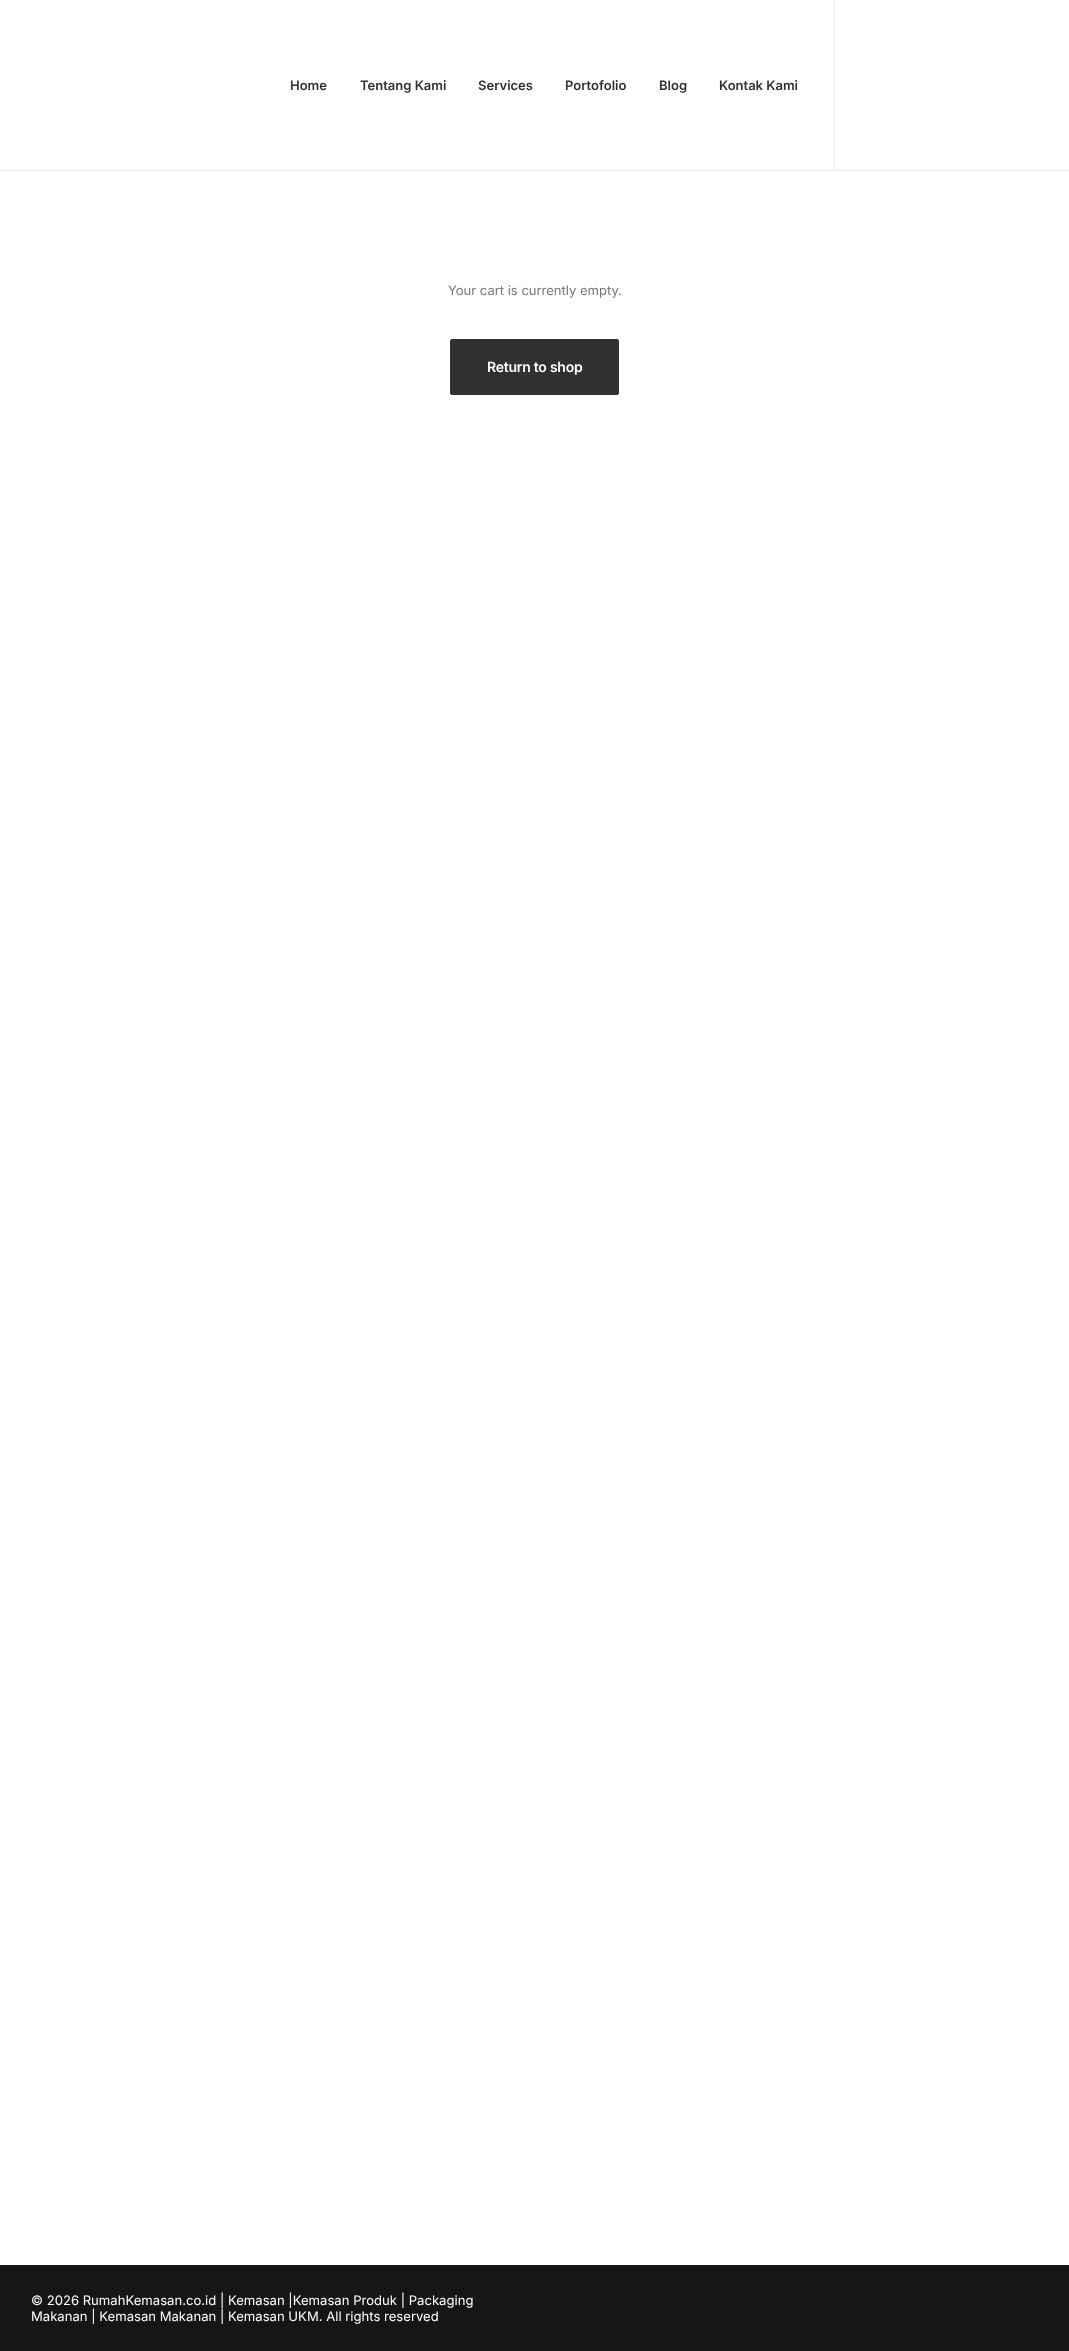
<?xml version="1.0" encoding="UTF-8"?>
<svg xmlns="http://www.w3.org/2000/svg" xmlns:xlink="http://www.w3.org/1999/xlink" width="1069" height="2351">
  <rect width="100%" height="100%" fill="#141618" />
  <rect width="1069" height="170" fill="#ffffff" />
  <rect y="170" width="1069" height="1" fill="#eaeaea" />
  <rect x="834" width="1" height="171" fill="#eaeaea" />
  <rect y="171" width="1069" height="2094" fill="#ffffff" />
  <rect x="450.5" y="339.5" width="168" height="55" rx="1.5" fill="#303133" stroke="#303133" />
  <text x="290" y="90" style="font-family: Inter; font-size: 13px; font-weight: 600; fill: #303133">Home</text>
  <text x="360" y="90" style="font-family: Inter; font-size: 13px; font-weight: 600; fill: #303133">Tentang Kami</text>
  <text x="478" y="90" style="font-family: Inter; font-size: 13px; font-weight: 600; fill: #303133">Services</text>
  <text x="565" y="90" style="font-family: Inter; font-size: 13px; font-weight: 600; fill: #303133">Portofolio</text>
  <text x="659" y="90" style="font-family: Inter; font-size: 13px; font-weight: 600; fill: #303133">Blog</text>
  <text x="719" y="90" style="font-family: Inter; font-size: 13px; font-weight: 600; fill: #303133">Kontak Kami</text>
  <text x="448" y="295" style="font-family: Inter; font-size: 13px; fill: #777777">Your cart is currently empty.</text>
  <text x="487" y="372" style="font-family: Inter; font-size: 14px; font-weight: 600; letter-spacing: -0.25px; fill: #ffffff">Return to shop</text>
  <text x="31" y="2305" style="font-family: Inter; font-size: 13.1px; fill: #ffffff">© 2026 RumahKemasan.co.id | Kemasan |Kemasan Produk | Packaging</text>
  <text x="31" y="2321" style="font-family: Inter; font-size: 13.1px; fill: #ffffff">Makanan | Kemasan Makanan | Kemasan UKM. All rights reserved</text>
</svg>
